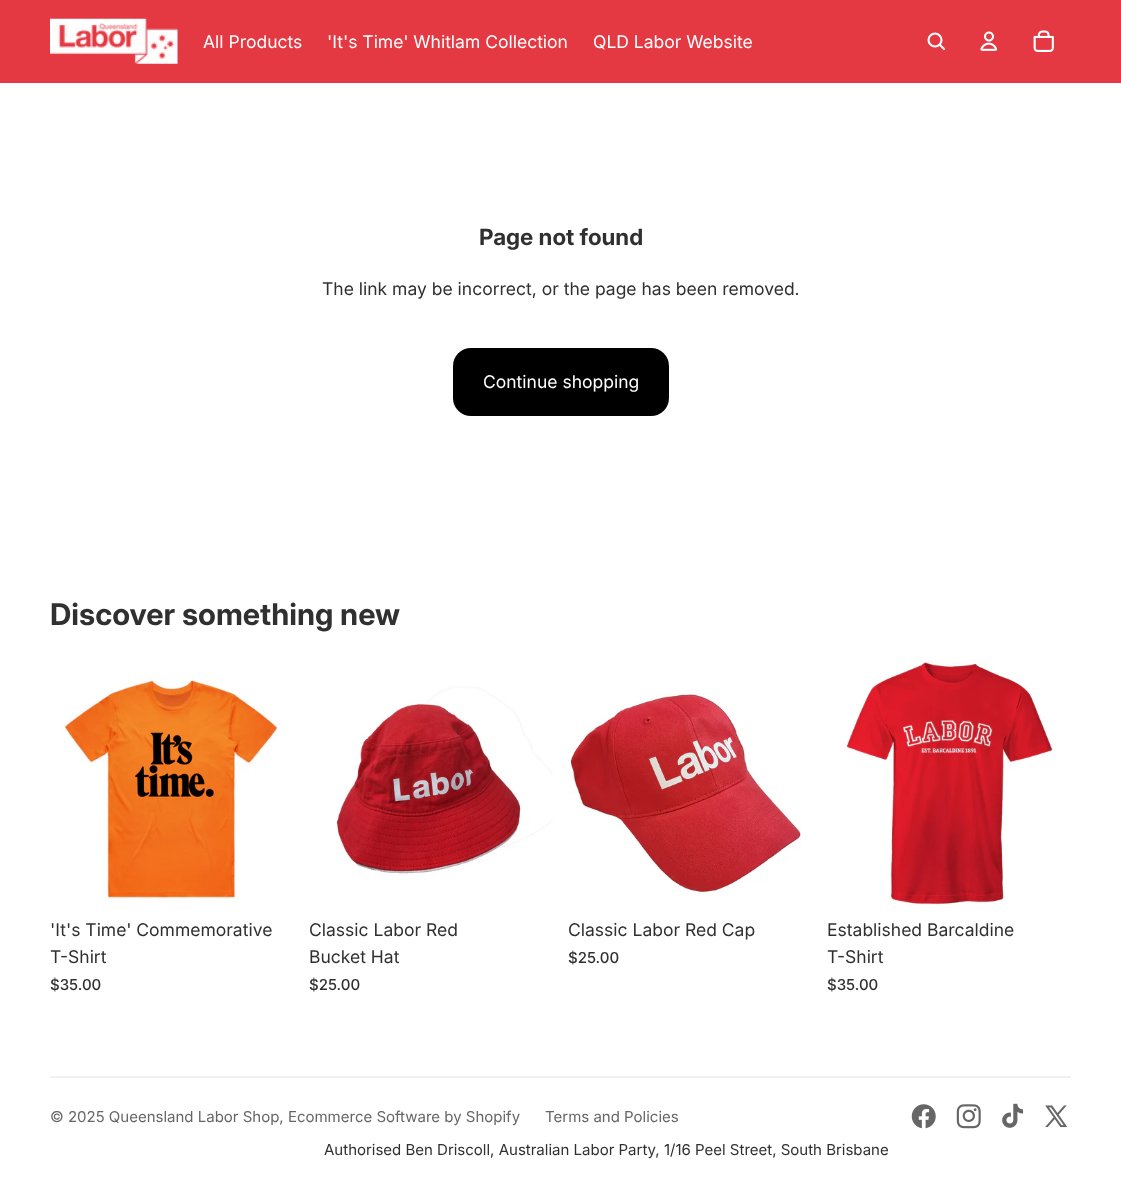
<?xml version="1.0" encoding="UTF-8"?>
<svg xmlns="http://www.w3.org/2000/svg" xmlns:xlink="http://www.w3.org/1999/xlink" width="1121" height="1187">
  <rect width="100%" height="100%" fill="#ffffff" />
  <rect width="1121" height="83" fill="#e43942" />
  <image x="50" y="18" width="128" height="46" xlink:href="image1.png" />
  <circle cx="935" cy="40" r="6.5" fill="none" stroke="#ffffff" stroke-width="2.1" />
  <path d="M 939.5 44.5 l 4.5 4.5" fill="none" stroke="#ffffff" stroke-width="2.1" stroke-linecap="round" stroke-linejoin="round" />
  <image x="980" y="31" width="18" height="20" xlink:href="image2.png" />
  <image x="1033" y="30" width="21" height="22" xlink:href="image3.png" />
  <rect x="453" y="348" width="216" height="68" rx="18" fill="#000000" />
  <image x="61" y="678" width="217" height="222" xlink:href="image4.png" />
  <image x="336" y="686" width="217" height="189" xlink:href="image5.png" />
  <image x="569" y="694" width="232" height="200" xlink:href="image6.png" />
  <image x="844" y="661" width="209" height="244" xlink:href="image7.png" />
  <path d="M 1071 1076 v 1.5 l -1 -1.5 z" fill="#f0f0f0" />
  <path d="M 1071 1078 h -1021 v -2 h 1020 z" fill="#f0f0f0" />
  <image x="911" y="1104" width="25" height="25" xlink:href="image8.png" />
  <image x="956" y="1104" width="25" height="25" xlink:href="image9.png" />
  <image x="1002" y="1103" width="22" height="25" xlink:href="image10.png" />
  <image x="1045" y="1105" width="23" height="23" xlink:href="image11.png" />
  <text x="203" y="48" style="font-family: Inter; font-size: 17.5px; fill: #ffffff">All Products</text>
  <text x="327" y="48" style="font-family: Inter; font-size: 17.5px; fill: #ffffff">'It's Time' Whitlam Collection</text>
  <text x="593" y="48" style="font-family: Inter; font-size: 17.5px; fill: #ffffff">QLD Labor Website</text>
  <text x="479" y="245" style="font-family: Inter; font-size: 22.5px; font-weight: bold; fill: #303030">Page not found</text>
  <text x="322" y="295" style="font-family: Inter; font-size: 17.5px; fill: #303030">The link may be incorrect, or the page has been removed.</text>
  <text x="483" y="388" style="font-family: Inter; font-size: 17.5px; fill: #ffffff">Continue shopping</text>
  <text x="50" y="625" style="font-family: 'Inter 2'; font-size: 30px; font-weight: bold; fill: #303030">Discover something new</text>
  <text x="50" y="936" style="font-family: Inter; font-size: 17.5px; fill: #303030">'It's Time' Commemorative</text>
  <text x="50" y="963" style="font-family: Inter; font-size: 17.5px; fill: #303030">T-Shirt</text>
  <text x="50" y="990" style="font-family: Inter; font-size: 15px; font-weight: 500; fill: #303030">$35.00</text>
  <text x="309" y="936" style="font-family: Inter; font-size: 17.5px; fill: #303030">Classic Labor Red</text>
  <text x="309" y="963" style="font-family: Inter; font-size: 17.5px; fill: #303030">Bucket Hat</text>
  <text x="309" y="990" style="font-family: Inter; font-size: 15px; font-weight: 500; fill: #303030">$25.00</text>
  <text x="568" y="936" style="font-family: Inter; font-size: 17.5px; fill: #303030">Classic Labor Red Cap</text>
  <text x="568" y="963" style="font-family: Inter; font-size: 15px; font-weight: 500; fill: #303030">$25.00</text>
  <text x="827" y="936" style="font-family: Inter; font-size: 17.5px; fill: #303030">Established Barcaldine</text>
  <text x="827" y="963" style="font-family: Inter; font-size: 17.5px; fill: #303030">T-Shirt</text>
  <text x="827" y="990" style="font-family: Inter; font-size: 15px; font-weight: 500; fill: #303030">$35.00</text>
  <text x="50" y="1122" style="font-family: Inter; font-size: 15px; fill: #666666">© 2025 Queensland Labor Shop, Ecommerce Software by Shopify</text>
  <text x="545" y="1122" style="font-family: Inter; font-size: 15px; fill: #666666">Terms and Policies</text>
  <text x="324" y="1155" style="font-family: Inter; font-size: 15px; fill: #303030">Authorised Ben Driscoll, Australian Labor Party, 1/16 Peel Street, South Brisbane</text>
</svg>
